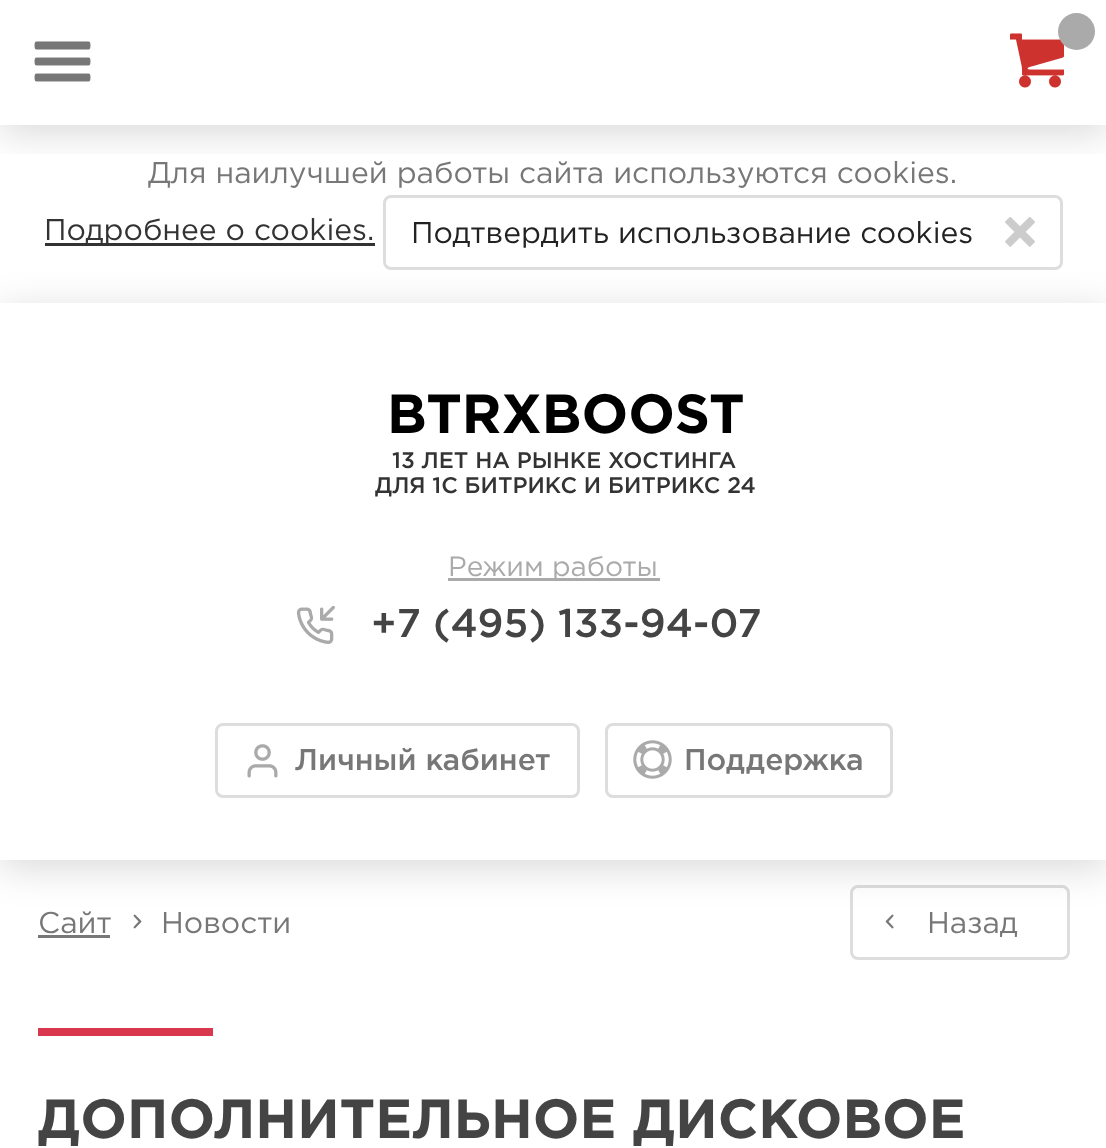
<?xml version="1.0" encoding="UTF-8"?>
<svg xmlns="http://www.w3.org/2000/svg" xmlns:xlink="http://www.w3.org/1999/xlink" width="1106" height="1148">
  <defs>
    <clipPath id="clip1"><rect x="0" y="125" width="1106" height="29" /></clipPath>
    <clipPath id="clip2"><path d="M 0 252 h 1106 v 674 h -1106 z m 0 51 h 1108 v 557 h -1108 z" clip-rule="evenodd" /></clipPath>
  </defs>
  <rect width="100%" height="100%" fill="#ffffff" />
  <g clip-path="url(#clip1)">
    <rect y="8" width="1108" height="125" fill="#000000" fill-opacity="0.15" filter="blur(19px)" />
  </g>
  <image x="34" y="41" width="57" height="41" xlink:href="image1.png" />
  <image x="1010" y="33" width="55" height="55" xlink:href="image2.png" />
  <circle cx="1076.5" cy="31.5" r="18.5" fill="#aaaaaa" />
  <rect x="45" y="243" width="330" height="3" fill="#333333" />
  <rect x="384.5" y="196.5" width="677" height="72" rx="6.5" fill="none" stroke="#dddddd" stroke-width="3" />
  <image x="1005" y="217" width="30" height="30" xlink:href="image3.png" />
  <image x="133" y="914" width="9" height="15" xlink:href="image7.png" />
  <rect x="851.5" y="886.5" width="217" height="72" rx="6.5" fill="none" stroke="#dddddd" stroke-width="3" />
  <image x="885" y="914" width="9" height="15" xlink:href="image8.png" />
  <g clip-path="url(#clip2)">
    <rect y="310" width="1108" height="558" fill="#000000" fill-opacity="0.15" filter="blur(19px)" />
  </g>
  <image x="296" y="605" width="39" height="39" xlink:href="image4.png" />
  <rect x="448" y="578" width="212" height="3" fill="#aaaaaa" />
  <rect x="216.5" y="724.5" width="362" height="72" rx="6.5" fill="none" stroke="#dddddd" stroke-width="3" />
  <image x="247" y="744" width="31" height="34" xlink:href="image5.png" />
  <rect x="606.5" y="724.5" width="285" height="72" rx="6.5" fill="none" stroke="#dddddd" stroke-width="3" />
  <image x="633" y="740" width="39" height="39" xlink:href="image6.png" />
  <rect x="38" y="935" width="72" height="3" fill="#777777" />
  <rect x="38" y="1028" width="175" height="8" fill="#d9374e" />
  <text x="148" y="183" style="font-family: Gotham; font-size: 30px; fill: #777777">Для наилучшей работы сайта используются cookies.</text>
  <text x="44" y="240" style="font-family: Gotham; font-size: 30px; fill: #333333">Подробнее о cookies.</text>
  <text x="411" y="243" style="font-family: Gotham; font-size: 30px; fill: #222222">Подтвердить использование cookies</text>
  <text x="387" y="433" style="font-family: Gotham; font-size: 55px; font-weight: bold; fill: #000000">BTRXBOOST</text>
  <text x="392" y="468" style="font-family: Gotham; font-size: 22.5px; font-weight: 500; fill: #333333">13 ЛЕТ НА РЫНКЕ ХОСТИНГА</text>
  <text x="375" y="493" style="font-family: Gotham; font-size: 22.5px; font-weight: 500; fill: #333333">ДЛЯ 1С БИТРИКС И БИТРИКС 24</text>
  <text x="448" y="576" style="font-family: Gotham; font-size: 28px; fill: #aaaaaa">Режим работы</text>
  <text x="371" y="637" style="font-family: Gotham; font-size: 40px; font-weight: 500; fill: #444444">+7 (495) 133-94-07</text>
  <text x="295" y="770" style="font-family: Gotham; font-size: 30px; font-weight: 500; fill: #777777">Личный кабинет</text>
  <text x="684" y="770" style="font-family: Gotham; font-size: 30px; font-weight: 500; fill: #777777">Поддержка</text>
  <text x="38" y="933" style="font-family: Gotham; font-size: 30px; fill: #777777">Сайт</text>
  <text x="161" y="933" style="font-family: Gotham; font-size: 30px; fill: #777777">Новости</text>
  <text x="927" y="933" style="font-family: Gotham; font-size: 30px; fill: #777777">Назад</text>
  <text x="38" y="1138" style="font-family: Gotham; font-size: 55px; font-weight: bold; fill: #444444">ДОПОЛНИТЕЛЬНОЕ ДИСКОВОЕ</text>
</svg>
